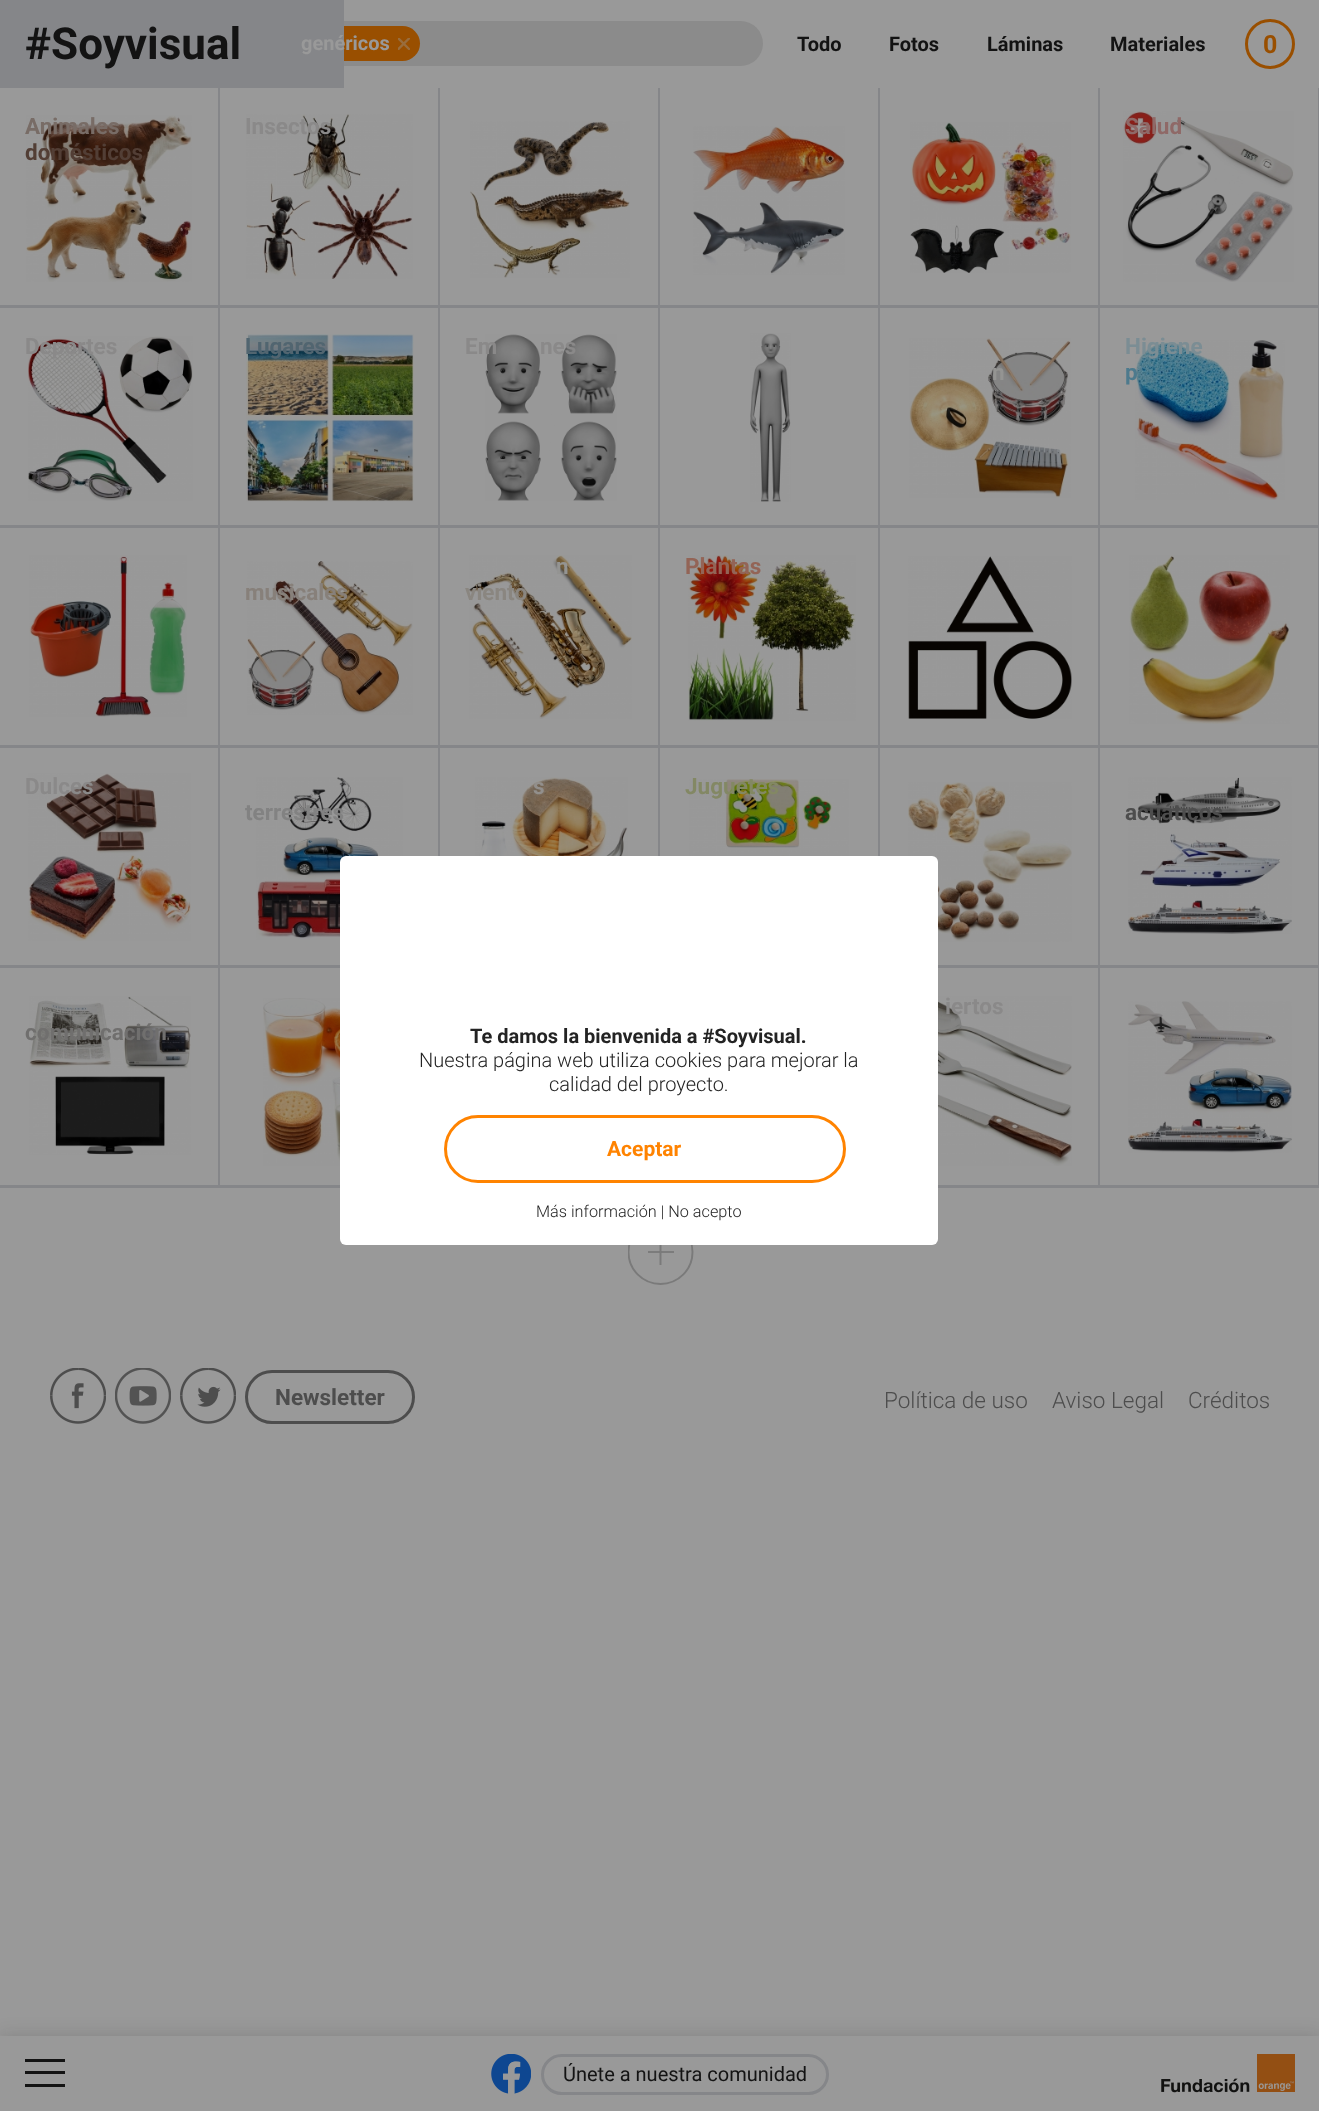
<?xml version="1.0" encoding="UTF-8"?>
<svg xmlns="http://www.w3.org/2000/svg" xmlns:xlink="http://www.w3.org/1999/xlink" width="1319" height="2111">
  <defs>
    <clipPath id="clip1"><rect x="398" y="38" width="12" height="12" /></clipPath>
    <clipPath id="clip2"><rect x="220" y="88" width="220" height="220" /></clipPath>
    <clipPath id="clip3"><rect x="440" y="88" width="220" height="220" /></clipPath>
    <clipPath id="clip4"><rect x="660" y="88" width="220" height="220" /></clipPath>
    <clipPath id="clip5"><rect x="880" y="88" width="220" height="220" /></clipPath>
    <clipPath id="clip6"><rect x="1100" y="88" width="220" height="220" /></clipPath>
    <clipPath id="clip7"><rect y="308" width="220" height="220" /></clipPath>
    <clipPath id="clip8"><rect x="220" y="308" width="220" height="220" /></clipPath>
    <clipPath id="clip9"><rect x="440" y="308" width="220" height="220" /></clipPath>
    <clipPath id="clip10"><rect x="660" y="308" width="220" height="220" /></clipPath>
    <clipPath id="clip11"><rect x="1100" y="308" width="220" height="220" /></clipPath>
    <clipPath id="clip12"><rect x="880" y="308" width="220" height="220" /></clipPath>
    <clipPath id="clip13"><rect y="528" width="220" height="220" /></clipPath>
    <clipPath id="clip14"><rect x="220" y="528" width="220" height="220" /></clipPath>
    <clipPath id="clip15"><rect x="440" y="528" width="220" height="220" /></clipPath>
    <clipPath id="clip16"><rect x="660" y="528" width="220" height="220" /></clipPath>
    <clipPath id="clip17"><rect x="880" y="528" width="220" height="220" /></clipPath>
    <clipPath id="clip18"><rect x="1100" y="528" width="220" height="220" /></clipPath>
    <clipPath id="clip19"><rect y="748" width="220" height="220" /></clipPath>
    <clipPath id="clip20"><rect x="440" y="748" width="220" height="220" /></clipPath>
    <clipPath id="clip21"><rect x="660" y="748" width="220" height="220" /></clipPath>
    <clipPath id="clip22"><rect x="880" y="748" width="220" height="220" /></clipPath>
    <clipPath id="clip23"><rect x="220" y="748" width="220" height="220" /></clipPath>
    <clipPath id="clip24"><rect x="1100" y="748" width="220" height="220" /></clipPath>
    <clipPath id="clip25"><rect x="220" y="968" width="220" height="220" /></clipPath>
    <clipPath id="clip26"><rect x="880" y="968" width="220" height="220" /></clipPath>
    <clipPath id="clip27"><rect x="1100" y="968" width="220" height="220" /></clipPath>
    <clipPath id="clip28"><rect y="968" width="220" height="220" /></clipPath>
    <clipPath id="clip29"><rect x="628" y="1219" width="66" height="66" /></clipPath>
  </defs>
  <rect width="100%" height="100%" fill="#999999" />
  <rect width="344" height="88" fill="#999999" />
  <rect x="266" y="21" width="497" height="45" rx="22.5" fill="#8b8b8b" />
  <rect x="291" y="26" width="129" height="35" rx="17.5" fill="#994f00" />
  <g clip-path="url(#clip1)">
    <path d="M 398.5 49 l 10.5 -10.5 m -10.5 0 l 10.5 10.5" fill="none" stroke="#996d3d" stroke-width="2.4" stroke-linecap="round" />
  </g>
  <circle cx="1270" cy="44" r="23.5" fill="none" stroke="#994f00" stroke-width="3" />
  <path d="M -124 -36 h 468 v 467 h -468 z m 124 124 h 218 v 217 h -218 z" fill="#858689" fill-rule="evenodd" />
  <image x="26" y="115" width="166" height="167" xlink:href="image1.png" />
  <rect x="220" y="88" width="124" height="217" fill="#999999" />
  <g clip-path="url(#clip2)">
    <path d="M 96 -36 h 468 v 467 h -468 z m 124 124 h 218 v 217 h -218 z" fill="#858689" fill-rule="evenodd" />
  </g>
  <image x="246" y="114" width="167" height="165" xlink:href="image2.png" />
  <g clip-path="url(#clip3)">
    <path d="M 316 -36 h 468 v 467 h -468 z m 124 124 h 218 v 217 h -218 z" fill="#858689" fill-rule="evenodd" />
  </g>
  <image x="470" y="121" width="160" height="157" xlink:href="image3.png" />
  <g clip-path="url(#clip4)">
    <path d="M 536 -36 h 468 v 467 h -468 z m 124 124 h 218 v 217 h -218 z" fill="#858689" fill-rule="evenodd" />
  </g>
  <image x="693" y="126" width="152" height="149" xlink:href="image4.png" />
  <g clip-path="url(#clip5)">
    <path d="M 756 -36 h 468 v 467 h -468 z m 124 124 h 218 v 217 h -218 z" fill="#858689" fill-rule="evenodd" />
  </g>
  <image x="910" y="122" width="161" height="151" xlink:href="image5.png" />
  <g clip-path="url(#clip6)">
    <path d="M 976 -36 h 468 v 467 h -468 z m 124 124 h 218 v 217 h -218 z" fill="#858689" fill-rule="evenodd" />
  </g>
  <image x="1123" y="111" width="171" height="171" xlink:href="image6.png" />
  <rect y="308" width="218" height="123" fill="#999999" />
  <g clip-path="url(#clip7)">
    <path d="M -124 184 h 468 v 467 h -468 z m 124 124 h 218 v 217 h -218 z" fill="#858689" fill-rule="evenodd" />
  </g>
  <image x="28" y="336" width="165" height="165" xlink:href="image7.png" />
  <rect x="220" y="308" width="124" height="123" fill="#999999" />
  <g clip-path="url(#clip8)">
    <path d="M 96 184 h 468 v 467 h -468 z m 124 124 h 218 v 217 h -218 z" fill="#858689" fill-rule="evenodd" />
  </g>
  <image x="246" y="334" width="168" height="168" xlink:href="image8.png" />
  <g clip-path="url(#clip9)">
    <path d="M 316 184 h 468 v 467 h -468 z m 124 124 h 218 v 217 h -218 z" fill="#858689" fill-rule="evenodd" />
  </g>
  <image x="485" y="334" width="132" height="167" xlink:href="image9.png" />
  <g clip-path="url(#clip10)">
    <path d="M 536 184 h 468 v 467 h -468 z m 124 124 h 218 v 217 h -218 z" fill="#858689" fill-rule="evenodd" />
  </g>
  <image x="750" y="333" width="41" height="169" xlink:href="image10.png" />
  <g clip-path="url(#clip11)">
    <path d="M 976 184 h 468 v 467 h -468 z m 124 124 h 218 v 217 h -218 z" fill="#858689" fill-rule="evenodd" />
  </g>
  <image x="1135" y="340" width="150" height="160" xlink:href="image11.png" />
  <g clip-path="url(#clip12)">
    <path d="M 756 184 h 468 v 467 h -468 z m 124 124 h 218 v 217 h -218 z" fill="#858689" fill-rule="evenodd" />
  </g>
  <image x="909" y="338" width="162" height="160" xlink:href="image12.png" />
  <g clip-path="url(#clip13)">
    <path d="M -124 404 h 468 v 467 h -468 z m 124 124 h 218 v 217 h -218 z" fill="#858689" fill-rule="evenodd" />
  </g>
  <image x="29" y="555" width="158" height="162" xlink:href="image13.png" />
  <g clip-path="url(#clip14)">
    <path d="M 96 404 h 468 v 467 h -468 z m 124 124 h 218 v 217 h -218 z" fill="#858689" fill-rule="evenodd" />
  </g>
  <image x="247" y="561" width="166" height="154" xlink:href="image14.png" />
  <g clip-path="url(#clip15)">
    <path d="M 316 404 h 468 v 467 h -468 z m 124 124 h 218 v 217 h -218 z" fill="#858689" fill-rule="evenodd" />
  </g>
  <image x="469" y="555" width="163" height="164" xlink:href="image15.png" />
  <g clip-path="url(#clip16)">
    <path d="M 536 404 h 468 v 467 h -468 z m 124 124 h 218 v 217 h -218 z" fill="#858689" fill-rule="evenodd" />
  </g>
  <image x="688" y="555" width="168" height="166" xlink:href="image16.png" />
  <g clip-path="url(#clip17)">
    <path d="M 756 404 h 468 v 467 h -468 z m 124 124 h 218 v 217 h -218 z" fill="#858689" fill-rule="evenodd" />
  </g>
  <image x="908" y="556" width="164" height="163" xlink:href="image17.png" />
  <g clip-path="url(#clip18)">
    <path d="M 976 404 h 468 v 467 h -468 z m 124 124 h 218 v 217 h -218 z" fill="#858689" fill-rule="evenodd" />
  </g>
  <image x="1129" y="555" width="161" height="169" xlink:href="image18.png" />
  <g clip-path="url(#clip19)">
    <path d="M -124 624 h 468 v 467 h -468 z m 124 124 h 218 v 217 h -218 z" fill="#858689" fill-rule="evenodd" />
  </g>
  <image x="28" y="773" width="163" height="168" xlink:href="image19.png" />
  <g clip-path="url(#clip20)">
    <path d="M 316 624 h 468 v 467 h -468 z m 124 124 h 218 v 217 h -218 z" fill="#858689" fill-rule="evenodd" />
  </g>
  <image x="475" y="777" width="153" height="79" xlink:href="image20.png" />
  <g clip-path="url(#clip21)">
    <path d="M 536 624 h 468 v 467 h -468 z m 124 124 h 218 v 217 h -218 z" fill="#858689" fill-rule="evenodd" />
  </g>
  <image x="689" y="779" width="160" height="77" xlink:href="image21.png" />
  <g clip-path="url(#clip22)">
    <path d="M 756 624 h 468 v 467 h -468 z m 124 124 h 218 v 217 h -218 z" fill="#858689" fill-rule="evenodd" />
  </g>
  <image x="908" y="782" width="164" height="160" xlink:href="image22.png" />
  <g clip-path="url(#clip23)">
    <path d="M 96 624 h 468 v 467 h -468 z m 124 124 h 218 v 217 h -218 z" fill="#858689" fill-rule="evenodd" />
  </g>
  <image x="256" y="777" width="147" height="163" xlink:href="image23.png" />
  <g clip-path="url(#clip24)">
    <path d="M 976 624 h 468 v 467 h -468 z m 124 124 h 218 v 217 h -218 z" fill="#858689" fill-rule="evenodd" />
  </g>
  <image x="1128" y="777" width="164" height="157" xlink:href="image24.png" />
  <g clip-path="url(#clip25)">
    <path d="M 96 844 h 468 v 467 h -468 z m 124 124 h 218 v 217 h -218 z" fill="#858689" fill-rule="evenodd" />
  </g>
  <image x="263" y="998" width="77" height="168" xlink:href="image25.png" />
  <g clip-path="url(#clip26)">
    <path d="M 756 844 h 468 v 467 h -468 z m 124 124 h 218 v 217 h -218 z" fill="#858689" fill-rule="evenodd" />
  </g>
  <image x="938" y="996" width="134" height="170" xlink:href="image26.png" />
  <g clip-path="url(#clip27)">
    <path d="M 976 844 h 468 v 467 h -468 z m 124 124 h 218 v 217 h -218 z" fill="#858689" fill-rule="evenodd" />
  </g>
  <image x="1128" y="1001" width="164" height="152" xlink:href="image27.png" />
  <g clip-path="url(#clip28)">
    <path d="M -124 844 h 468 v 467 h -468 z m 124 124 h 218 v 217 h -218 z" fill="#858689" fill-rule="evenodd" />
  </g>
  <image x="29" y="996" width="162" height="159" xlink:href="image28.png" />
  <rect x="648" y="1251" width="26" height="2" fill="#7c7c7c" />
  <path d="M 660.5 1239 v 26" fill="none" stroke="#7a7a7a" stroke-width="1.9" />
  <g clip-path="url(#clip29)">
    <circle cx="660.5" cy="1252" r="32" fill="none" stroke="#7a7a7a" stroke-width="1.9" />
  </g>
  <image x="50" y="1368" width="56" height="56" xlink:href="image29.png" />
  <image x="115" y="1368" width="56" height="56" xlink:href="image30.png" />
  <image x="180" y="1368" width="56" height="56" xlink:href="image31.png" />
  <rect x="246.5" y="1371.5" width="167" height="51" rx="25.5" fill="none" stroke="#4d4d4d" stroke-width="3" />
  <rect y="2035" width="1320" height="75" fill="#101010" fill-opacity="0.15" filter="blur(9px)" />
  <rect y="2036" width="1319" height="75" fill="#999999" />
  <rect x="25" y="2071" width="40" height="3" fill="#131313" />
  <rect x="25" y="2059" width="40" height="3" fill="#131313" />
  <rect x="25" y="2084" width="40" height="3" fill="#131313" />
  <image x="491" y="2054" width="40" height="40" xlink:href="image32.png" />
  <rect x="542.5" y="2055.5" width="285" height="38" rx="19" fill="none" stroke="#858689" stroke-width="3" />
  <image x="1161" y="2054" width="134" height="39" xlink:href="image33.png" />
  <rect x="340" y="856" width="598" height="389" rx="6" fill="#ffffff" />
  <rect x="445.5" y="1116.5" width="399" height="65" rx="32.5" fill="none" stroke="#ff8300" stroke-width="3" />
  <text x="25" y="59" style="font-family: Roboto; font-size: 44px; font-weight: bold; fill: #131313">#Soyvisual</text>
  <text x="301" y="50" style="font-family: Roboto; font-size: 20px; font-weight: bold; fill: #999999">genéricos</text>
  <text x="797" y="51" style="font-family: Roboto; font-size: 20px; font-weight: bold; fill: #131313">Todo</text>
  <text x="889" y="51" style="font-family: Roboto; font-size: 20px; font-weight: bold; fill: #131313">Fotos</text>
  <text x="987" y="51" style="font-family: Roboto; font-size: 20px; font-weight: bold; fill: #131313">Láminas</text>
  <text x="1110" y="51" style="font-family: Roboto; font-size: 20px; font-weight: bold; fill: #131313">Materiales</text>
  <text x="1263" y="53" style="font-family: Roboto; font-size: 25px; font-weight: bold; fill: #994f00">0</text>
  <text x="25" y="134" style="font-family: Roboto; font-size: 22.5px; font-weight: bold; fill: #786c66">Animales</text>
  <text x="25" y="160" style="font-family: Roboto; font-size: 22.5px; font-weight: bold; fill: #523e35">domésticos</text>
  <text x="245" y="134" style="font-family: Roboto; font-size: 22.5px; font-weight: bold; fill: #8a8989">Insectos</text>
  <text x="1125" y="134" style="font-family: Roboto; font-size: 22.5px; font-weight: bold; fill: #8f6967">Salud</text>
  <text x="25" y="354" style="font-family: Roboto; font-size: 22.5px; font-weight: bold; fill: #8a8989">Deportes</text>
  <text x="245" y="354" style="font-family: Roboto; font-size: 22.5px; font-weight: bold; fill: #516570">Lugares</text>
  <text x="465" y="354" style="font-family: Roboto; font-size: 22.5px; font-weight: bold; fill: #8a8989">Em</text>
  <text x="540" y="354" style="font-family: Roboto; font-size: 22.5px; font-weight: bold; fill: #8a8989">nes</text>
  <text x="1125" y="354" style="font-family: Roboto; font-size: 22.5px; font-weight: bold; fill: #7b8d94">Higiene</text>
  <text x="1125" y="380" style="font-family: Roboto; font-size: 22.5px; font-weight: bold; fill: #4d7a8d">p</text>
  <text x="992" y="380" style="font-family: Roboto; font-size: 22.5px; font-weight: bold; fill: #949492">n</text>
  <text x="245" y="600" style="font-family: Roboto; font-size: 22.5px; font-weight: bold; fill: #87807a">musicales</text>
  <text x="556" y="574" style="font-family: Roboto; font-size: 22.5px; font-weight: bold; fill: #949492">n</text>
  <text x="465" y="600" style="font-family: Roboto; font-size: 22.5px; font-weight: bold; fill: #8a8680">viento</text>
  <text x="685" y="574" style="font-family: Roboto; font-size: 22.5px; font-weight: bold; fill: #936456">Plantas</text>
  <text x="25" y="794" style="font-family: Roboto; font-size: 22.5px; font-weight: bold; fill: #8a8989">Dulces</text>
  <text x="533" y="794" style="font-family: Roboto; font-size: 22.5px; font-weight: bold; fill: #928f8c">s</text>
  <text x="685" y="794" style="font-family: Roboto; font-size: 22.5px; font-weight: bold; fill: #838864">Juguetes</text>
  <text x="245" y="820" style="font-family: Roboto; font-size: 22.5px; font-weight: bold; fill: #828282">terrestres</text>
  <text x="1125" y="820" style="font-family: Roboto; font-size: 22.5px; font-weight: bold; fill: #4d4d4d">acuáticos</text>
  <text x="945" y="1014" style="font-family: Roboto; font-size: 22.5px; font-weight: bold; fill: #8a8989">iertos</text>
  <text x="25" y="1040" style="font-family: Roboto; font-size: 22.5px; font-weight: bold; fill: #706f6e">comunicación</text>
  <text x="275" y="1405" style="font-family: Roboto; font-size: 22.5px; font-weight: bold; fill: #4d4d4d">Newsletter</text>
  <text x="884" y="1408" style="font-family: Roboto; font-size: 22.5px; font-weight: 300; fill: #4d4d4d">Política de uso</text>
  <text x="1052" y="1408" style="font-family: Roboto; font-size: 22.5px; font-weight: 300; fill: #4d4d4d">Aviso Legal</text>
  <text x="1188" y="1408" style="font-family: Roboto; font-size: 22.5px; font-weight: 300; fill: #4d4d4d">Créditos</text>
  <text x="563" y="2081" style="font-family: Roboto; font-size: 20px; fill: #131313">Únete a nuestra comunidad</text>
  <text x="470" y="1043" style="font-family: Roboto; font-size: 20px; font-weight: bold; fill: #232323">Te damos la bienvenida a #Soyvisual.</text>
  <text x="419" y="1067" style="font-family: Roboto; font-size: 20px; font-weight: 300; fill: #232323">Nuestra página web utiliza cookies para mejorar la</text>
  <text x="549" y="1091" style="font-family: Roboto; font-size: 20px; font-weight: 300; fill: #232323">calidad del proyecto.</text>
  <text x="536" y="1217" style="font-family: Roboto; font-size: 16.25px; font-weight: 300; fill: #232323">Más información | No acepto</text>
  <text x="607" y="1156" style="font-family: Roboto; font-size: 21px; font-weight: bold; fill: #ff8300">Aceptar</text>
</svg>
